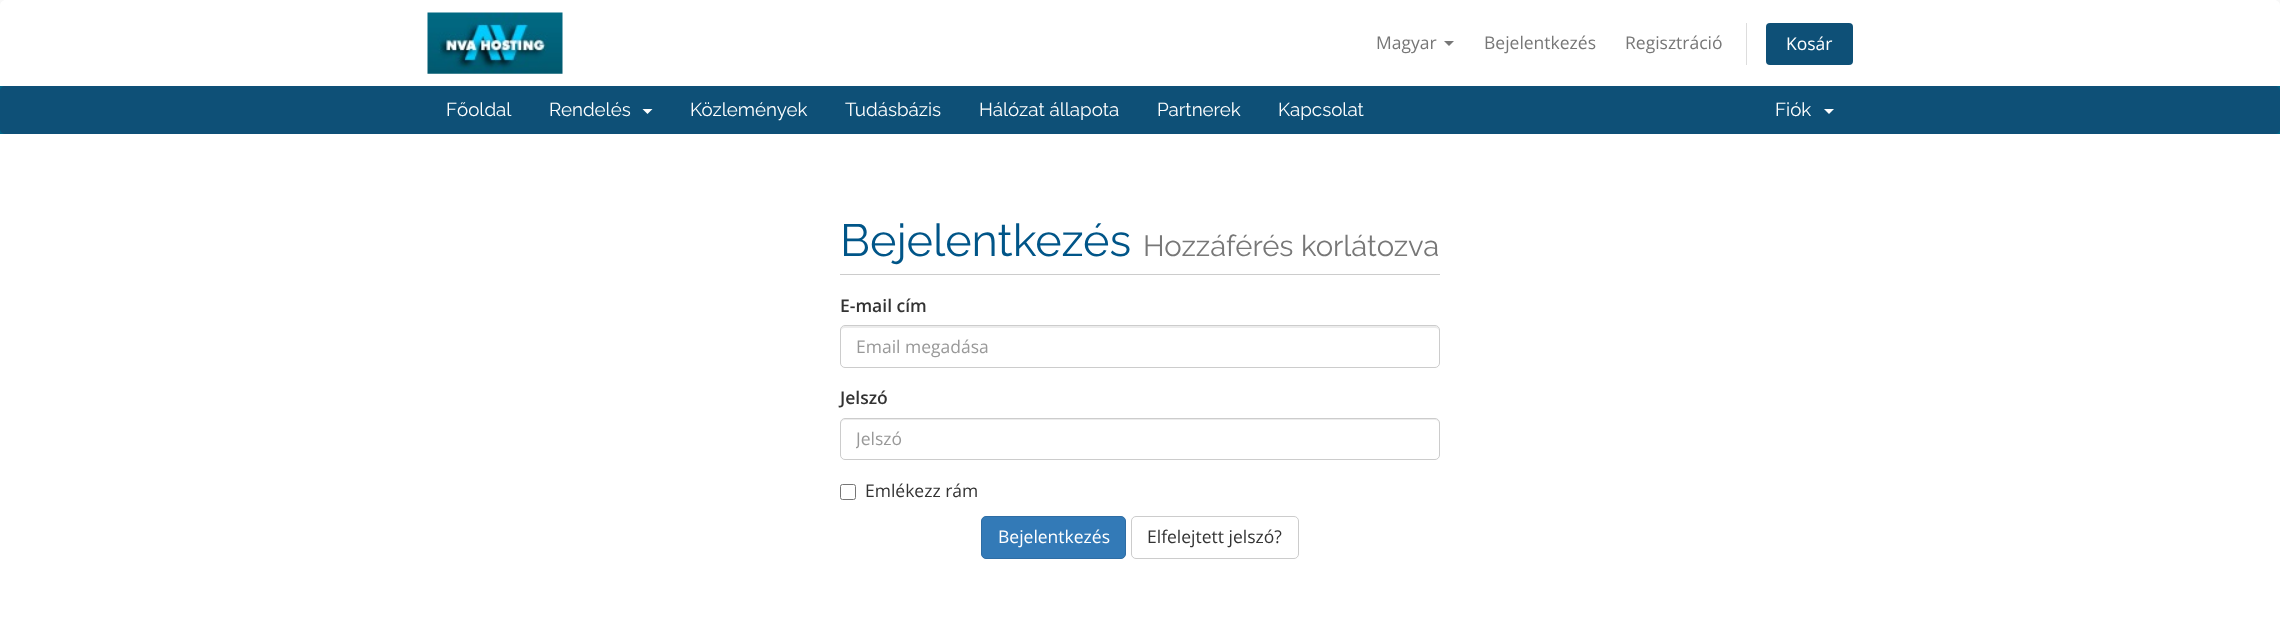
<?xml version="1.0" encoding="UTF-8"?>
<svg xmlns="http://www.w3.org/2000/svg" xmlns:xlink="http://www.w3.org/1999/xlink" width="2280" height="620">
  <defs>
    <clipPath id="clip1"><rect x="856" y="426" width="568" height="24" /></clipPath>
  </defs>
  <rect width="100%" height="100%" fill="#f8f8f8" />
  <path d="M 6 0 h 2268 c 3.5 0 6 2.5 6 6 v 80 h -2280 v -80 c 0 -3.5 2.5 -6 6 -6 z" fill="#ffffff" />
  <image x="427" y="12" width="136" height="62" xlink:href="image1.png" />
  <path d="M 1444 41 h 10 l -5 5 z" fill="#777777" />
  <rect x="1746" y="23" width="1" height="42" fill="#dddddd" />
  <rect x="1766" y="23" width="87" height="42" rx="4" fill="#0e5077" />
  <rect y="86" width="2280" height="48" fill="#006687" />
  <rect y="86" width="2280" height="48" rx="5" fill="#0e5077" />
  <path d="M 642.5 109 h 10 l -5 5 z" fill="#ffffff" />
  <path d="M 1824 109 h 10 l -5 5 z" fill="#ffffff" />
  <rect y="134" width="2280" height="486" fill="#ffffff" />
  <rect x="840" y="274" width="600" height="1" fill="#cccccc" />
  <path d="M 845 328 h 590 c 2 0 4 1 4 3 v -1 c 0 -2 -2 -4 -4 -4 h -590 c -2 0 -4 2 -4 4 v 1 c 0 -2 2 -3 4 -3 z" fill="#ececec" />
  <rect x="840.5" y="325.5" width="599" height="42" rx="4.5" fill="none" stroke="#cccccc" />
  <path d="M 845 420 h 590 c 2 0 4 2 4 4 v -1 c 0 -2 -2 -4 -4 -4 h -590 c -2 0 -4 2 -4 4 v 1 c 0 -2 2 -4 4 -4 z" fill="#ececec" />
  <rect x="840.5" y="418.5" width="599" height="41" rx="4.5" fill="none" stroke="#cccccc" />
  <rect x="840.5" y="484.5" width="15" height="15" rx="2" fill="none" stroke="#767676" />
  <rect x="981.5" y="516.5" width="144" height="42" rx="4.5" fill="#337ab7" stroke="#2e6da4" />
  <rect x="1131.5" y="516.5" width="167" height="42" rx="4.5" fill="none" stroke="#cccccc" />
  <text x="1376" y="49" style="font-family: Open Sans; font-size: 17.5px; fill: #777777">Magyar</text>
  <text x="1484" y="49" style="font-family: Open Sans; font-size: 17.5px; fill: #777777">Bejelentkezés</text>
  <text x="1625" y="49" style="font-family: Open Sans; font-size: 17.5px; fill: #777777">Regisztráció</text>
  <text x="1786" y="50" style="font-family: Open Sans; font-size: 17.5px; fill: #ffffff">Kosár</text>
  <text x="446" y="116" style="font-family: Raleway; font-size: 18.75px; fill: #ffffff">Főoldal</text>
  <text x="549" y="116" style="font-family: Raleway; font-size: 18.75px; fill: #ffffff">Rendelés</text>
  <text x="690" y="116" style="font-family: Raleway; font-size: 18.75px; fill: #ffffff">Közlemények</text>
  <text x="845" y="116" style="font-family: Raleway; font-size: 18.75px; fill: #ffffff">Tudásbázis</text>
  <text x="979" y="116" style="font-family: Raleway; font-size: 18.75px; fill: #ffffff">Hálózat állapota</text>
  <text x="1157" y="116" style="font-family: Raleway; font-size: 18.75px; fill: #ffffff">Partnerek</text>
  <text x="1278" y="116" style="font-family: Raleway; font-size: 18.75px; fill: #ffffff">Kapcsolat</text>
  <text x="1775" y="116" style="font-family: Raleway; font-size: 18.75px; fill: #ffffff">Fiók</text>
  <text x="840" y="256" style="font-family: Raleway; font-size: 45px; fill: #005588">Bejelentkezés</text>
  <text x="1143" y="256" style="font-family: Raleway; font-size: 29.25px; fill: #777777">Hozzáférés korlátozva</text>
  <text x="840" y="312" style="font-family: Open Sans; font-size: 17.5px; font-weight: 600; fill: #333333">E-mail cím</text>
  <text x="856" y="353" style="font-family: Open Sans; font-size: 17.5px; fill: #999999">Email megadása</text>
  <text x="840" y="404" style="font-family: Open Sans; font-size: 17.5px; font-weight: 600; fill: #333333">Jelszó</text>
  <g clip-path="url(#clip1)">
    <text x="856" y="445" style="font-family: Open Sans; font-size: 17.5px; fill: #999999">Jelszó</text>
  </g>
  <text x="865" y="497" style="font-family: Open Sans; font-size: 17.5px; fill: #333333">Emlékezz rám</text>
  <text x="998" y="543" style="font-family: Open Sans; font-size: 17.5px; fill: #ffffff">Bejelentkezés</text>
  <text x="1147" y="543" style="font-family: Open Sans; font-size: 17.5px; fill: #333333">Elfelejtett jelszó?</text>
</svg>
